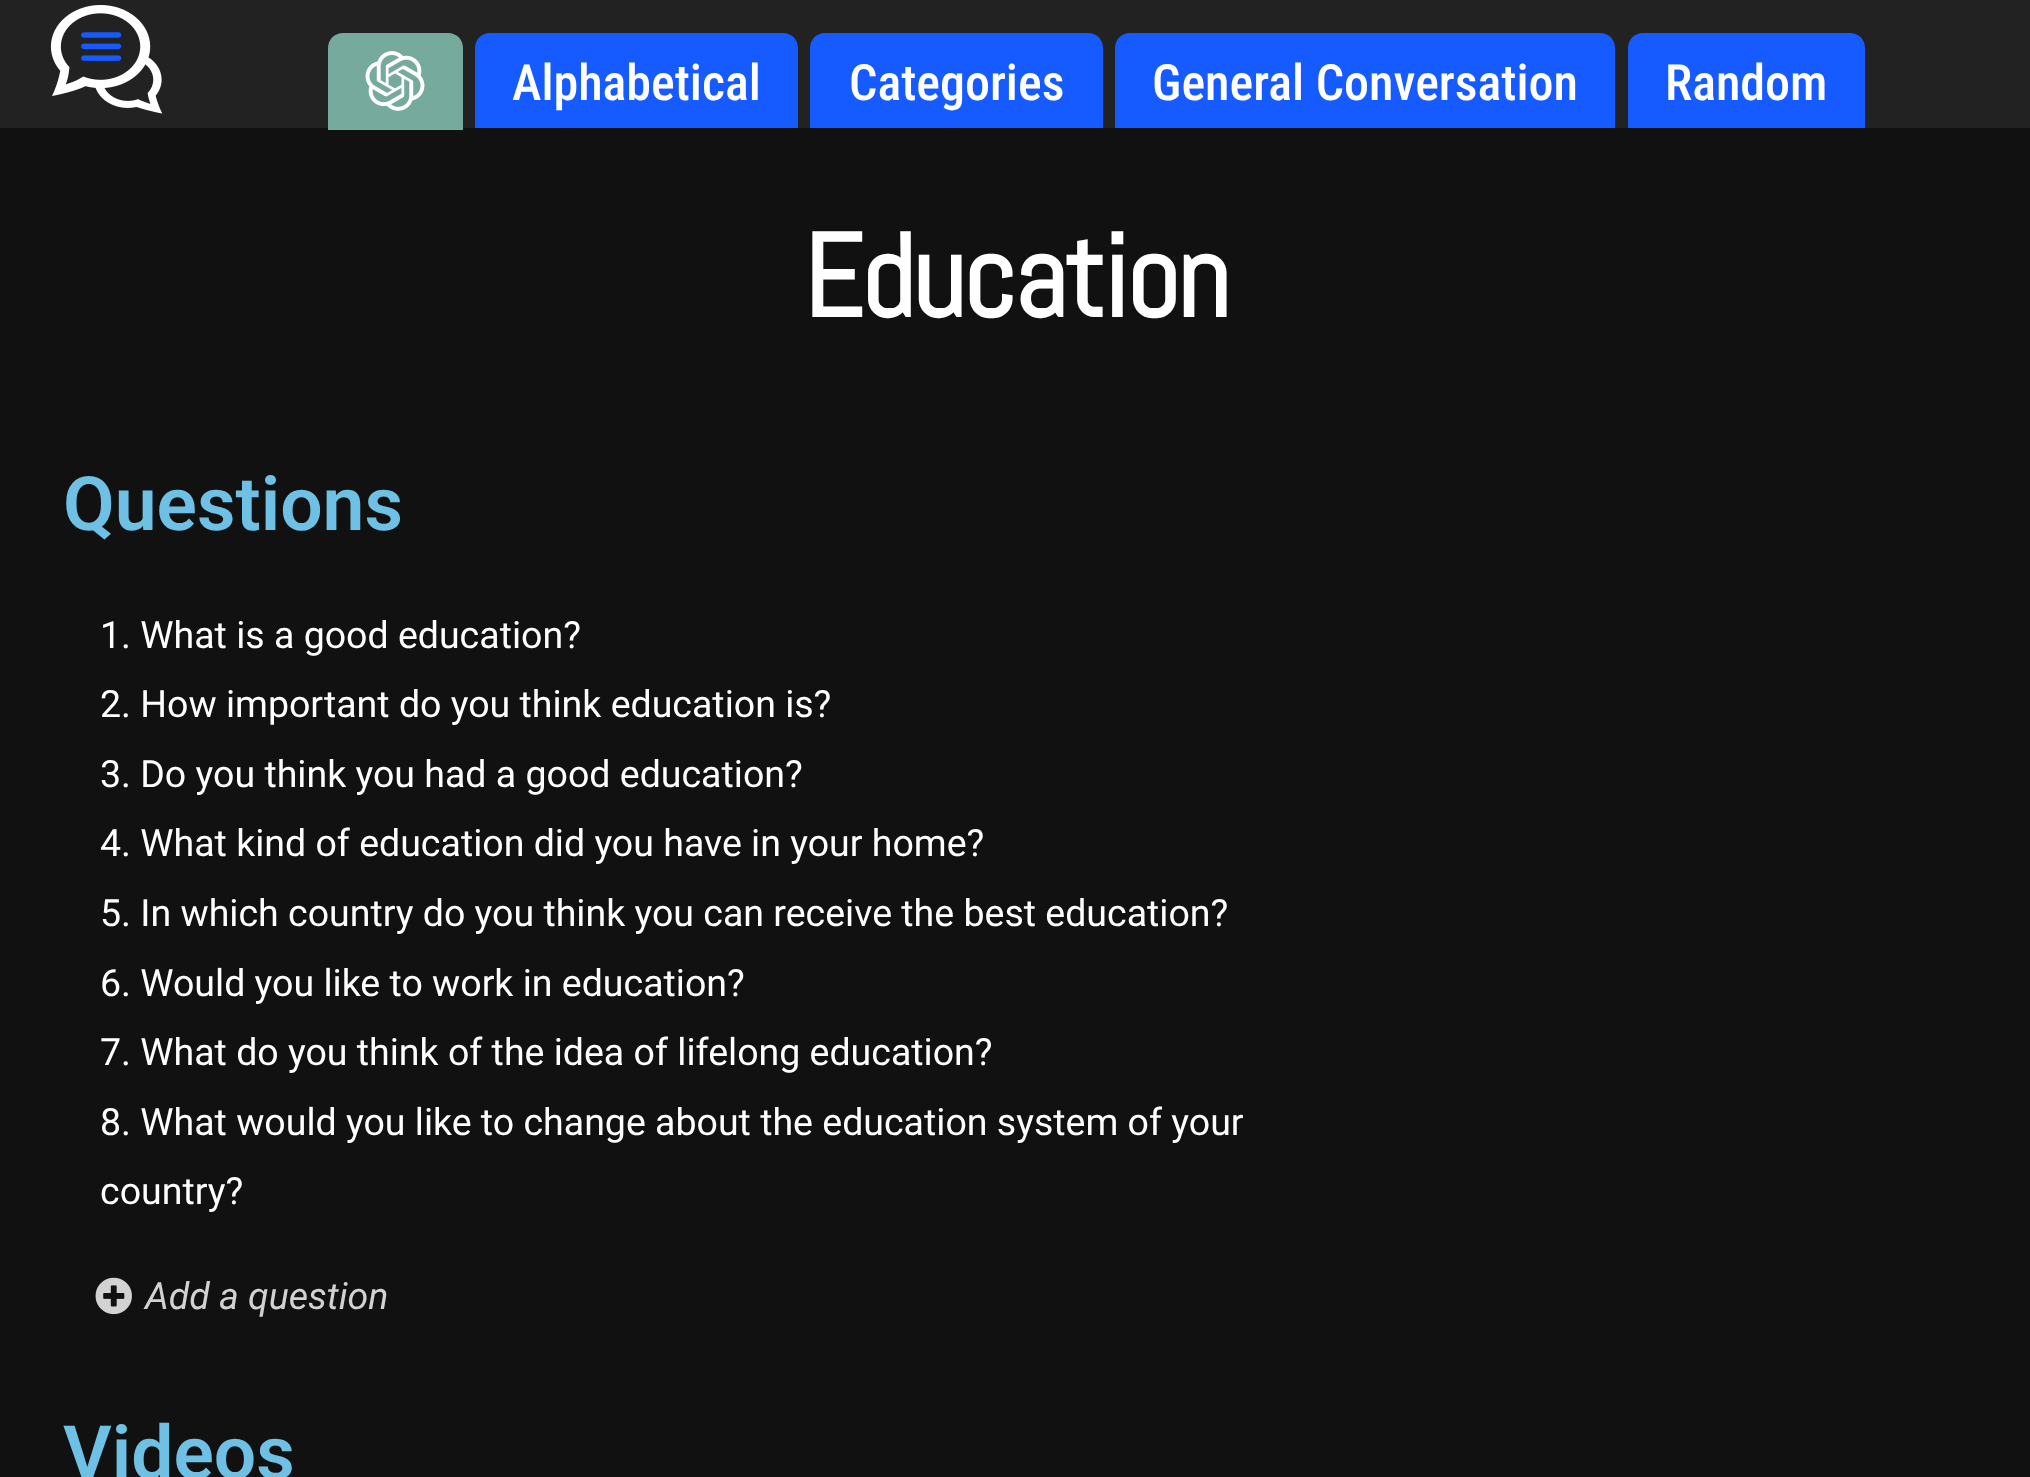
<?xml version="1.0" encoding="UTF-8"?>
<svg xmlns="http://www.w3.org/2000/svg" xmlns:xlink="http://www.w3.org/1999/xlink" width="2030" height="1477">
  <rect width="100%" height="100%" fill="#111111" />
  <rect width="2030" height="128" fill="#222222" />
  <image x="50" y="5" width="113" height="109" xlink:href="image1.png" />
  <path d="M 343 33 h 105 c 8.5 0 15 6.5 15 15 v 82 h -135 v -82 c 0 -8.5 6.5 -15 15 -15 z" fill="#76aa9d" />
  <image x="365" y="51" width="60" height="60" xlink:href="image2.png" />
  <path d="M 490 33 h 293 c 8.5 0 15 6.5 15 15 v 80 h -323 v -80 c 0 -8.5 6.5 -15 15 -15 z" fill="#165bff" />
  <path d="M 825 33 h 263 c 8.5 0 15 6.5 15 15 v 80 h -293 v -80 c 0 -8.5 6.5 -15 15 -15 z" fill="#165bff" />
  <path d="M 1130 33 h 470 c 8.5 0 15 6.5 15 15 v 80 h -500 v -80 c 0 -8.5 6.5 -15 15 -15 z" fill="#165bff" />
  <path d="M 1643 33 h 207 c 8.5 0 15 6.5 15 15 v 80 h -237 v -80 c 0 -8.5 6.5 -15 15 -15 z" fill="#165bff" />
  <image x="95" y="1277" width="37" height="38" xlink:href="image3.png" />
  <text x="512" y="100" style="font-family: Roboto Condensed; font-size: 50px; font-weight: 500; fill: #ffffff">Alphabetical</text>
  <text x="849" y="100" style="font-family: Roboto Condensed; font-size: 50px; font-weight: 500; fill: #ffffff">Categories</text>
  <text x="1152" y="100" style="font-family: Roboto Condensed; font-size: 50px; font-weight: 500; fill: #ffffff">General Conversation</text>
  <text x="1665" y="100" style="font-family: Roboto Condensed; font-size: 50px; font-weight: 500; fill: #ffffff">Random</text>
  <text x="803" y="317" style="font-family: Abel; font-size: 117.5px; font-weight: bold; letter-spacing: -2.5px; fill: #ffffff">Education</text>
  <text x="63" y="530" style="font-family: Roboto; font-size: 75px; font-weight: 600; fill: #6ec1e4">Questions</text>
  <text x="100" y="648" style="font-family: Roboto; font-size: 37.5px; fill: #ffffff">1. What is a good education?</text>
  <text x="100" y="717" style="font-family: Roboto; font-size: 37.5px; fill: #ffffff">2. How important do you think education is?</text>
  <text x="100" y="787" style="font-family: Roboto; font-size: 37.5px; fill: #ffffff">3. Do you think you had a good education?</text>
  <text x="100" y="856" style="font-family: Roboto; font-size: 37.5px; fill: #ffffff">4. What kind of education did you have in your home?</text>
  <text x="100" y="926" style="font-family: Roboto; font-size: 37.5px; fill: #ffffff">5. In which country do you think you can receive the best education?</text>
  <text x="100" y="996" style="font-family: Roboto; font-size: 37.5px; fill: #ffffff">6. Would you like to work in education?</text>
  <text x="100" y="1065" style="font-family: Roboto; font-size: 37.5px; fill: #ffffff">7. What do you think of the idea of lifelong education?</text>
  <text x="100" y="1135" style="font-family: Roboto; font-size: 37.5px; fill: #ffffff">8. What would you like to change about the education system of your</text>
  <text x="100" y="1204" style="font-family: Roboto; font-size: 37.5px; fill: #ffffff">country?</text>
  <text x="145" y="1309" style="font-family: Roboto; font-size: 37.5px; font-style: italic; fill: #d2d2d2">Add a question</text>
  <text x="63" y="1479" style="font-family: Roboto; font-size: 75px; font-weight: 600; fill: #6ec1e4">Videos</text>
</svg>
